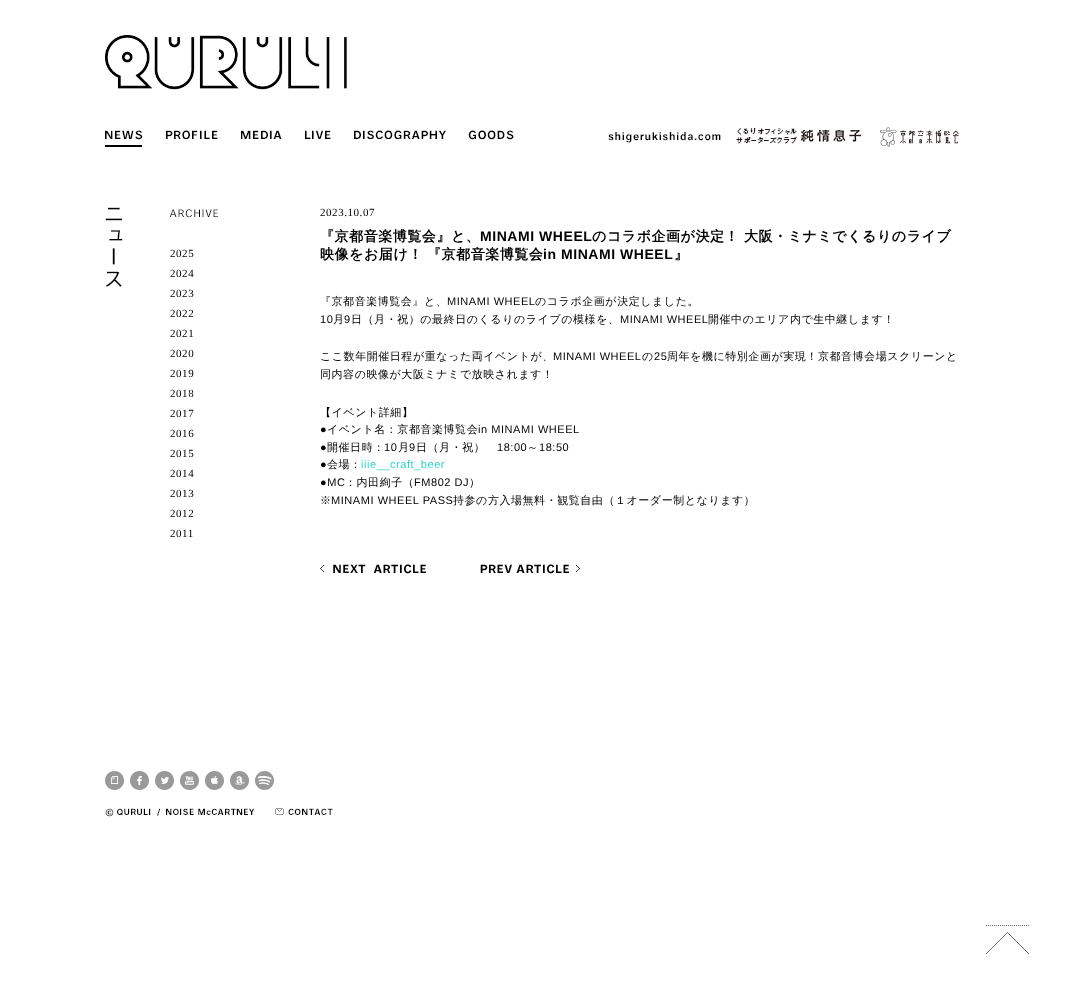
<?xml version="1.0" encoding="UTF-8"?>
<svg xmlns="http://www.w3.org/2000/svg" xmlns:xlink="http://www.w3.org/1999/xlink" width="1069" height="989">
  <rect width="100%" height="100%" fill="#ffffff" />
  <image x="105" y="35" width="242" height="55" xlink:href="image1.png" />
  <image x="105" y="130" width="38" height="17" xlink:href="image2.png" />
  <image x="166" y="130" width="52" height="9" xlink:href="image3.png" />
  <image x="241" y="130" width="41" height="9" xlink:href="image4.png" />
  <image x="305" y="130" width="26" height="9" xlink:href="image5.png" />
  <image x="354" y="130" width="92" height="9" xlink:href="image6.png" />
  <image x="468" y="130" width="46" height="10" xlink:href="image7.png" />
  <image x="608" y="132" width="113" height="11" xlink:href="image8.png" />
  <image x="736" y="125" width="126" height="19" xlink:href="image9.png" />
  <image x="880" y="127" width="79" height="20" xlink:href="image10.png" />
  <image x="105" y="207" width="18" height="80" xlink:href="image11.png" />
  <image x="169" y="209" width="49" height="9" xlink:href="image12.png" />
  <image x="320" y="564" width="106" height="10" xlink:href="image13.png" />
  <image x="480" y="564" width="100" height="10" xlink:href="image14.png" />
  <image x="105" y="771" width="19" height="19" xlink:href="image15.png" />
  <image x="130" y="771" width="19" height="19" xlink:href="image16.png" />
  <image x="155" y="771" width="19" height="19" xlink:href="image17.png" />
  <image x="180" y="771" width="19" height="19" xlink:href="image18.png" />
  <image x="205" y="771" width="19" height="19" xlink:href="image19.png" />
  <image x="230" y="771" width="19" height="19" xlink:href="image20.png" />
  <image x="255" y="771" width="19" height="19" xlink:href="image21.png" />
  <image x="105" y="808" width="150" height="9" xlink:href="image22.png" />
  <image x="275" y="808" width="58" height="7" xlink:href="image23.png" />
  <image x="986" y="925" width="43" height="29" xlink:href="image24.png" />
  <text x="170" y="257" style="font-family: Liberation Serif; font-size: 11px; letter-spacing: 0.55px; fill: #000000">2025</text>
  <text x="170" y="277" style="font-family: Liberation Serif; font-size: 11px; letter-spacing: 0.55px; fill: #000000">2024</text>
  <text x="170" y="297" style="font-family: Liberation Serif; font-size: 11px; letter-spacing: 0.55px; fill: #000000">2023</text>
  <text x="170" y="317" style="font-family: Liberation Serif; font-size: 11px; letter-spacing: 0.55px; fill: #000000">2022</text>
  <text x="170" y="337" style="font-family: Liberation Serif; font-size: 11px; letter-spacing: 0.55px; fill: #000000">2021</text>
  <text x="170" y="357" style="font-family: Liberation Serif; font-size: 11px; letter-spacing: 0.55px; fill: #000000">2020</text>
  <text x="170" y="377" style="font-family: Liberation Serif; font-size: 11px; letter-spacing: 0.55px; fill: #000000">2019</text>
  <text x="170" y="397" style="font-family: Liberation Serif; font-size: 11px; letter-spacing: 0.55px; fill: #000000">2018</text>
  <text x="170" y="417" style="font-family: Liberation Serif; font-size: 11px; letter-spacing: 0.55px; fill: #000000">2017</text>
  <text x="170" y="437" style="font-family: Liberation Serif; font-size: 11px; letter-spacing: 0.55px; fill: #000000">2016</text>
  <text x="170" y="457" style="font-family: Liberation Serif; font-size: 11px; letter-spacing: 0.55px; fill: #000000">2015</text>
  <text x="170" y="477" style="font-family: Liberation Serif; font-size: 11px; letter-spacing: 0.55px; fill: #000000">2014</text>
  <text x="170" y="497" style="font-family: Liberation Serif; font-size: 11px; letter-spacing: 0.55px; fill: #000000">2013</text>
  <text x="170" y="517" style="font-family: Liberation Serif; font-size: 11px; letter-spacing: 0.55px; fill: #000000">2012</text>
  <text x="170" y="537" style="font-family: Liberation Serif; font-size: 11px; letter-spacing: 0.55px; fill: #000000">2011</text>
  <text x="320" y="216" style="font-family: Liberation Serif; font-size: 11px; letter-spacing: 0.55px; fill: #000000">2023.10.07</text>
  <text x="320" y="241" style="font-family: WenQuanYi Zen Hei; font-size: 14px; font-weight: bold; letter-spacing: 0.55px; fill: #000000">『京都音楽博覧会』と、</text>
  <text x="480" y="241" style="font-family: Liberation Sans; font-size: 14px; font-weight: bold; letter-spacing: 0.55px; fill: #000000">MINAMI WHEEL</text>
  <text x="592" y="241" style="font-family: WenQuanYi Zen Hei; font-size: 14px; font-weight: bold; letter-spacing: 0.55px; fill: #000000">のコラボ企画が決定！</text>
  <text x="744" y="241" style="font-family: WenQuanYi Zen Hei; font-size: 14px; font-weight: bold; letter-spacing: 0.55px; fill: #000000">大阪・ミナミでくるりのライブ</text>
  <text x="320" y="259" style="font-family: WenQuanYi Zen Hei; font-size: 14px; font-weight: bold; letter-spacing: 0.55px; fill: #000000">映像をお届け！</text>
  <text x="427" y="259" style="font-family: WenQuanYi Zen Hei; font-size: 14px; font-weight: bold; letter-spacing: 0.55px; fill: #000000">『京都音楽博覧会</text>
  <text x="543" y="259" style="font-family: Liberation Sans; font-size: 14px; font-weight: bold; letter-spacing: 0.55px; fill: #000000">in MINAMI WHEEL</text>
  <text x="674" y="259" style="font-family: WenQuanYi Zen Hei; font-size: 14px; font-weight: bold; letter-spacing: 0.55px; fill: #000000">』</text>
  <text x="320" y="305" style="font-family: WenQuanYi Zen Hei; font-size: 11px; font-weight: 500; letter-spacing: 0.55px; fill: #000000">『京都音楽博覧会』と、</text>
  <text x="447" y="305" style="font-family: Liberation Sans; font-size: 11px; letter-spacing: 0.55px; fill: #000000">MINAMI WHEEL</text>
  <text x="535" y="305" style="font-family: WenQuanYi Zen Hei; font-size: 11px; font-weight: 500; letter-spacing: 0.55px; fill: #000000">のコラボ企画が決定しました。</text>
  <text x="320" y="323" style="font-family: Liberation Sans; font-size: 11px; letter-spacing: 0.55px; fill: #000000">10</text>
  <text x="333" y="323" style="font-family: WenQuanYi Zen Hei; font-size: 11px; font-weight: 500; letter-spacing: 0.55px; fill: #000000">月</text>
  <text x="344" y="323" style="font-family: Liberation Sans; font-size: 11px; letter-spacing: 0.55px; fill: #000000">9</text>
  <text x="351" y="323" style="font-family: WenQuanYi Zen Hei; font-size: 11px; font-weight: 500; letter-spacing: 0.55px; fill: #000000">日（月・祝）の最終日のくるりのライブの模様を、</text>
  <text x="620" y="323" style="font-family: Liberation Sans; font-size: 11px; letter-spacing: 0.55px; fill: #000000">MINAMI WHEEL</text>
  <text x="708" y="323" style="font-family: WenQuanYi Zen Hei; font-size: 11px; font-weight: 500; letter-spacing: 0.55px; fill: #000000">開催中のエリア内で生中継します！</text>
  <text x="320" y="360" style="font-family: WenQuanYi Zen Hei; font-size: 11px; font-weight: 500; letter-spacing: 0.55px; fill: #000000">ここ数年開催日程が重なった両イベントが、</text>
  <text x="553" y="360" style="font-family: Liberation Sans; font-size: 11px; letter-spacing: 0.55px; fill: #000000">MINAMI WHEEL</text>
  <text x="642" y="360" style="font-family: WenQuanYi Zen Hei; font-size: 11px; font-weight: 500; letter-spacing: 0.55px; fill: #000000">の</text>
  <text x="654" y="360" style="font-family: Liberation Sans; font-size: 11px; letter-spacing: 0.55px; fill: #000000">25</text>
  <text x="667" y="360" style="font-family: WenQuanYi Zen Hei; font-size: 11px; font-weight: 500; letter-spacing: 0.55px; fill: #000000">周年を機に特別企画が実現！京都音博会場スクリーンと</text>
  <text x="320" y="378" style="font-family: WenQuanYi Zen Hei; font-size: 11px; font-weight: 500; letter-spacing: 0.55px; fill: #000000">同内容の映像が大阪ミナミで放映されます！</text>
  <text x="320" y="416" style="font-family: WenQuanYi Zen Hei; font-size: 11px; font-weight: 500; letter-spacing: 0.55px; fill: #000000">【イベント詳細】</text>
  <text x="320" y="433" style="font-family: Liberation Sans; font-size: 11px; letter-spacing: 0.55px; fill: #000000">●</text>
  <text x="327" y="433" style="font-family: WenQuanYi Zen Hei; font-size: 11px; font-weight: 500; letter-spacing: 0.55px; fill: #000000">イベント名：京都音楽博覧会</text>
  <text x="478" y="433" style="font-family: Liberation Sans; font-size: 11px; letter-spacing: 0.55px; fill: #000000">in MINAMI WHEEL</text>
  <text x="320" y="451" style="font-family: Liberation Sans; font-size: 11px; letter-spacing: 0.55px; fill: #000000">●</text>
  <text x="327" y="451" style="font-family: WenQuanYi Zen Hei; font-size: 11px; font-weight: 500; letter-spacing: 0.55px; fill: #000000">開催日時：</text>
  <text x="384" y="451" style="font-family: Liberation Sans; font-size: 11px; letter-spacing: 0.55px; fill: #000000">10</text>
  <text x="398" y="451" style="font-family: WenQuanYi Zen Hei; font-size: 11px; font-weight: 500; letter-spacing: 0.55px; fill: #000000">月</text>
  <text x="409" y="451" style="font-family: Liberation Sans; font-size: 11px; letter-spacing: 0.55px; fill: #000000">9</text>
  <text x="416" y="451" style="font-family: WenQuanYi Zen Hei; font-size: 11px; font-weight: 500; letter-spacing: 0.55px; fill: #000000">日（月・祝）</text>
  <text x="497" y="451" style="font-family: Liberation Sans; font-size: 11px; letter-spacing: 0.55px; fill: #000000">18:00</text>
  <text x="527" y="451" style="font-family: WenQuanYi Zen Hei; font-size: 11px; font-weight: 500; letter-spacing: 0.55px; fill: #000000">～</text>
  <text x="539" y="451" style="font-family: Liberation Sans; font-size: 11px; letter-spacing: 0.55px; fill: #000000">18:50</text>
  <text x="320" y="468" style="font-family: Liberation Sans; font-size: 11px; letter-spacing: 0.55px; fill: #000000">●</text>
  <text x="327" y="468" style="font-family: WenQuanYi Zen Hei; font-size: 11px; font-weight: 500; letter-spacing: 0.55px; fill: #000000">会場：</text>
  <text x="361" y="468" style="font-family: Liberation Sans; font-size: 11px; letter-spacing: 0.55px; fill: #35cccb">iiie__craft_beer</text>
  <text x="320" y="486" style="font-family: Liberation Sans; font-size: 11px; letter-spacing: 0.55px; fill: #000000">●MC</text>
  <text x="345" y="486" style="font-family: WenQuanYi Zen Hei; font-size: 11px; font-weight: 500; letter-spacing: 0.55px; fill: #000000">：内田絢子（</text>
  <text x="414" y="486" style="font-family: Liberation Sans; font-size: 11px; letter-spacing: 0.55px; fill: #000000">FM802 DJ</text>
  <text x="469" y="486" style="font-family: WenQuanYi Zen Hei; font-size: 11px; font-weight: 500; letter-spacing: 0.55px; fill: #000000">）</text>
  <text x="320" y="504" style="font-family: WenQuanYi Zen Hei; font-size: 11px; font-weight: 500; letter-spacing: 0.55px; fill: #000000">※</text>
  <text x="331" y="504" style="font-family: Liberation Sans; font-size: 11px; letter-spacing: 0.55px; fill: #000000">MINAMI WHEEL PASS</text>
  <text x="453" y="504" style="font-family: WenQuanYi Zen Hei; font-size: 11px; font-weight: 500; letter-spacing: 0.55px; fill: #000000">持参の方入場無料・観覧自由（１オーダー制となります）</text>
</svg>
